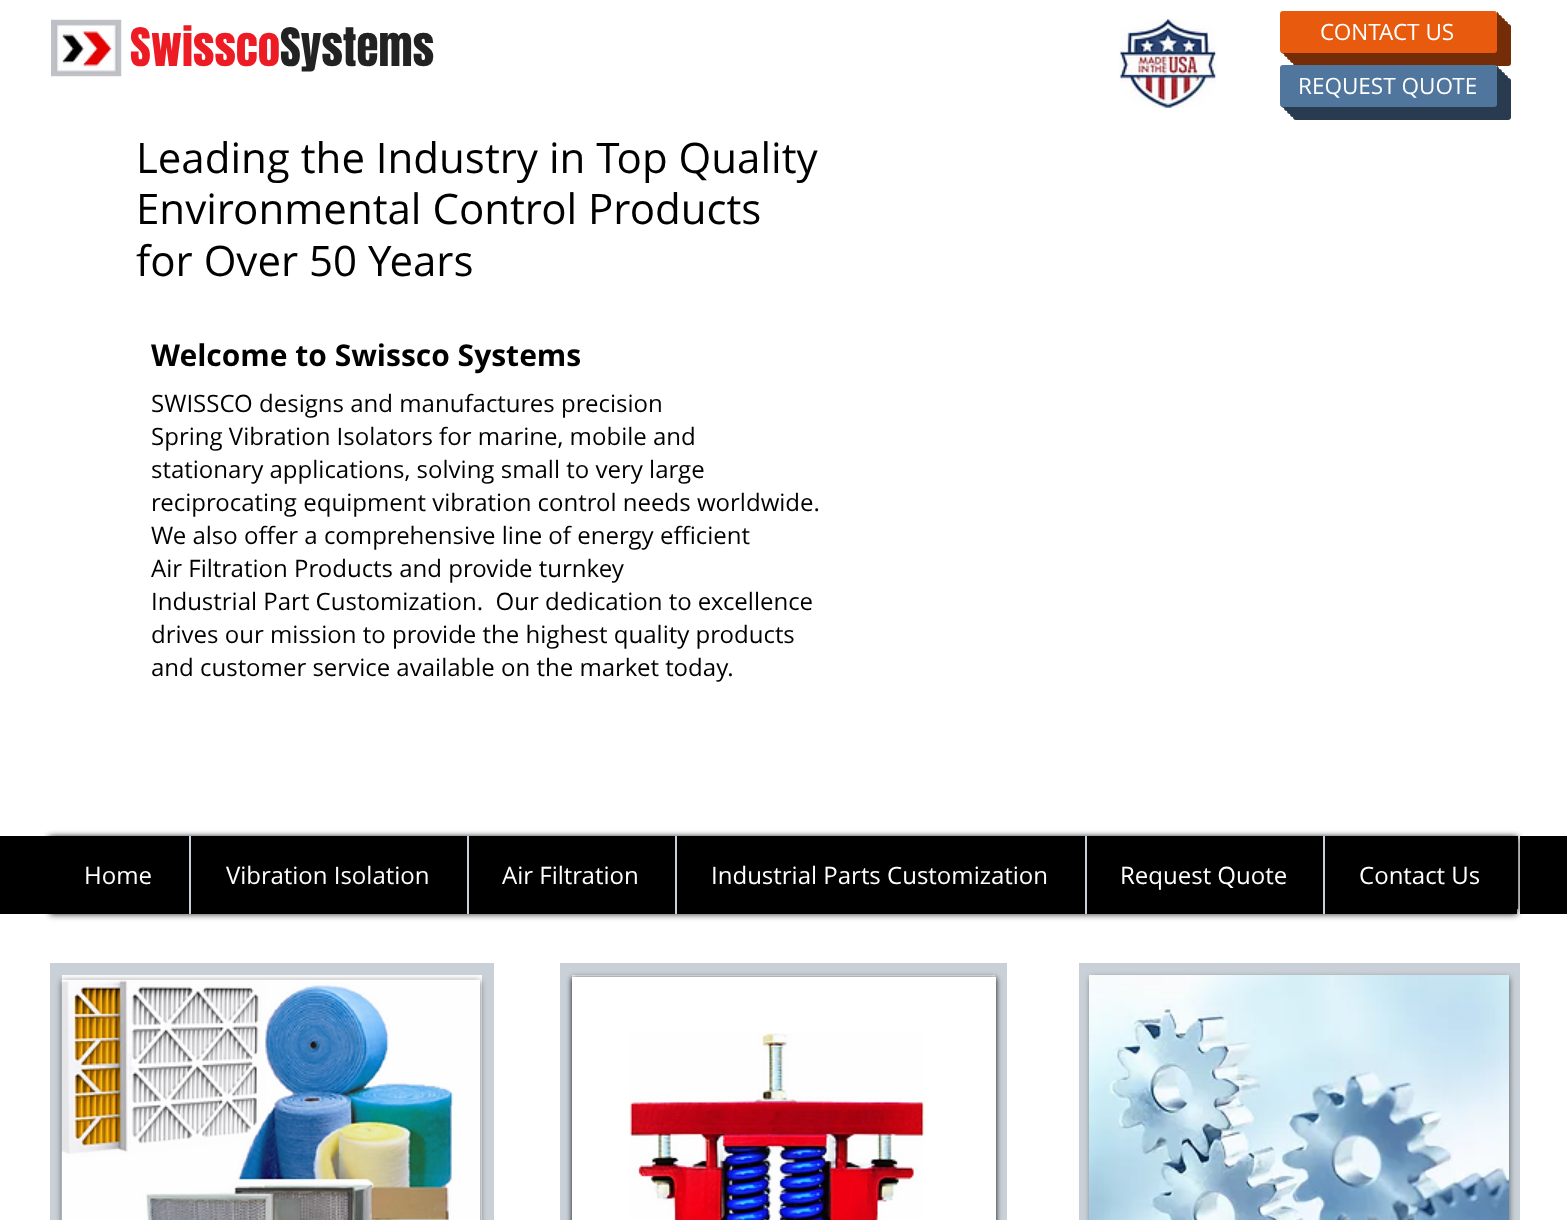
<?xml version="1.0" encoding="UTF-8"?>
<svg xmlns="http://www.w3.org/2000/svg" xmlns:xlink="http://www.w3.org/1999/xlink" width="1567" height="1220">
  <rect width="100%" height="100%" fill="#ffffff" />
  <image x="51" y="19" width="71" height="58" xlink:href="image1.png" />
  <path d="M 1293 52 v 11 c 0 2 1 3 3 3 h 212 c 2 0 3 -1 3 -3 v -36 c 0 -2 -1 -3 -3 -3 h -11 v 26 c 0 1 -1 2 -3 2 z" fill="#742d07" />
  <path d="M 1290 52 v 8 c 0 2 1 3 3 3 h 212 c 2 0 3 -1 3 -3 v -36 c 0 -2 -1 -3 -3 -3 h -8 v 29 c 0 1 -1 2 -3 2 z" fill="#742d07" />
  <path d="M 1287 52 v 5 c 0 2 1 3 3 3 h 212 c 2 0 3 -1 3 -3 v -36 c 0 -2 -1 -3 -3 -3 h -5 v 32 c 0 1 -1 2 -3 2 z" fill="#742d07" />
  <path d="M 1284 52 v 2 c 0 2 1 3 3 3 h 212 c 2 0 3 -1 3 -3 v -36 c 0 -2 -1 -3 -3 -3 h -2 v 35 c 0 1 -1 2 -3 2 z" fill="#742d07" />
  <path d="M 1281 52 c 1 1 2 2 3 2 h 212 c 2 0 3 -1 3 -3 v -36 c 0 -1 -1 -3 -2 -3 v 32 c 0 2 1 8 -3 8 z" fill="#742d07" />
  <rect x="1280" y="11" width="217" height="42" rx="3" fill="#e85a0d" />
  <path d="M 1293 106 v 11 c 0 2 1 3 3 3 h 212 c 2 0 3 -1 3 -3 v -36 c 0 -2 -1 -3 -3 -3 h -11 v 26 c 0 1 -1 2 -3 2 z" fill="#283b4f" />
  <path d="M 1290 106 v 8 c 0 2 1 3 3 3 h 212 c 2 0 3 -1 3 -3 v -36 c 0 -2 -1 -3 -3 -3 h -8 v 29 c 0 1 -1 2 -3 2 z" fill="#283b4f" />
  <path d="M 1287 106 v 5 c 0 2 1 3 3 3 h 212 c 2 0 3 -1 3 -3 v -36 c 0 -2 -1 -3 -3 -3 h -5 v 32 c 0 1 -1 2 -3 2 z" fill="#283b4f" />
  <path d="M 1284 106 v 2 c 0 2 1 3 3 3 h 212 c 2 0 3 -1 3 -3 v -36 c 0 -2 -1 -3 -3 -3 h -2 v 35 c 0 1 -1 2 -3 2 z" fill="#283b4f" />
  <path d="M 1281 106 c 1 1 2 2 3 2 h 212 c 2 0 3 -1 3 -3 v -36 c 0 -1 -1 -3 -2 -3 v 32 c 0 2 1 8 -3 8 z" fill="#283b4f" />
  <rect x="1280" y="65" width="217" height="42" rx="3" fill="#50769d" />
  <image x="1119" y="19" width="98" height="89" xlink:href="image2.png" />
  <rect y="836" width="1567" height="78" fill="#000000" />
  <rect x="1517" y="836" width="3" height="78" fill="#ffffff" />
  <rect x="48" y="837" width="1470" height="74" fill="#000000" fill-opacity="0.6" filter="blur(3px)" />
  <rect x="1517" y="836" width="1" height="73" fill="#000000" />
  <rect x="50" y="837" width="1467" height="78" fill="#000000" fill-opacity="0.6" filter="blur(3px)" />
  <rect x="189" y="836" width="2" height="78" fill="#c9d0d7" />
  <rect x="467" y="836" width="2" height="78" fill="#c9d0d7" />
  <rect x="675" y="836" width="2" height="78" fill="#c9d0d7" />
  <rect x="1085" y="836" width="2" height="78" fill="#c9d0d7" />
  <rect x="1323" y="836" width="2" height="78" fill="#c9d0d7" />
  <rect x="56" y="969" width="432" height="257" fill="none" stroke="#c9d0d7" stroke-width="12" />
  <rect x="62" y="981" width="418" height="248" fill="#000000" fill-opacity="0.6" filter="blur(3px)" />
  <image x="61" y="979" width="419" height="241" xlink:href="image3.png" />
  <rect x="566" y="969" width="435" height="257" fill="none" stroke="#c9d0d7" stroke-width="12" />
  <rect x="572" y="978" width="424" height="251" fill="#000000" fill-opacity="0.6" filter="blur(3px)" />
  <rect x="572" y="978" width="424" height="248" fill="#000000" fill-opacity="0.5" filter="blur(2px)" />
  <rect x="572" y="977" width="424" height="243" fill="#ffffff" />
  <image x="629" y="1033" width="296" height="187" xlink:href="image4.png" />
  <rect x="1085" y="969" width="429" height="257" fill="none" stroke="#c9d0d7" stroke-width="12" />
  <rect x="1091" y="978" width="418" height="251" fill="#000000" fill-opacity="0.6" filter="blur(3px)" />
  <image x="1089" y="975" width="420" height="245" xlink:href="image5.png" />
  <text x="130" y="66" style="font-family: Anton; font-size: 45px; fill: #ed1c24">Swissco</text>
  <text x="280" y="66" style="font-family: Anton; font-size: 45px; fill: #222222">Systems</text>
  <text x="1320" y="40" style="font-family: Open Sans; font-size: 22.5px; fill: #ffffff">CONTACT US</text>
  <text x="1298" y="94" style="font-family: Open Sans; font-size: 22.5px; fill: #ffffff">REQUEST QUOTE</text>
  <text x="136" y="173" style="font-family: Open Sans; font-size: 42px; fill: #000000">Leading the Industry in Top Quality</text>
  <text x="136" y="224" style="font-family: Open Sans; font-size: 42px; fill: #000000">Environmental Control Products</text>
  <text x="136" y="276" style="font-family: Open Sans; font-size: 42px; fill: #000000">for Over 50 Years</text>
  <text x="151" y="366" style="font-family: Open Sans; font-size: 30px; font-weight: bold; fill: #000000">Welcome to Swissco Systems</text>
  <text x="151" y="412" style="font-family: Open Sans; font-size: 24px; fill: #000000">SWISSCO designs and manufactures precision</text>
  <text x="151" y="445" style="font-family: Open Sans; font-size: 24px; fill: #000000">Spring Vibration Isolators for marine, mobile and</text>
  <text x="151" y="478" style="font-family: Open Sans; font-size: 24px; fill: #000000">stationary applications, solving small to very large</text>
  <text x="151" y="511" style="font-family: Open Sans; font-size: 24px; fill: #000000">reciprocating equipment vibration control needs worldwide.</text>
  <text x="151" y="544" style="font-family: Open Sans; font-size: 24px; fill: #000000">We also offer a comprehensive line of energy efficient</text>
  <text x="151" y="577" style="font-family: Open Sans; font-size: 24px; fill: #000000">Air Filtration Products and provide turnkey</text>
  <text x="151" y="610" style="font-family: Open Sans; font-size: 24px; fill: #000000" xml:space="preserve">Industrial Part Customization.  Our dedication to excellence</text>
  <text x="151" y="643" style="font-family: Open Sans; font-size: 24px; fill: #000000">drives our mission to provide the highest quality products</text>
  <text x="151" y="676" style="font-family: Open Sans; font-size: 24px; fill: #000000">and customer service available on the market today.</text>
  <text x="84" y="884" style="font-family: Open Sans; font-size: 24px; fill: #ffffff">Home</text>
  <text x="226" y="884" style="font-family: Open Sans; font-size: 24px; fill: #ffffff">Vibration Isolation</text>
  <text x="502" y="884" style="font-family: Open Sans; font-size: 24px; fill: #ffffff">Air Filtration</text>
  <text x="711" y="884" style="font-family: Open Sans; font-size: 24px; fill: #ffffff">Industrial Parts Customization</text>
  <text x="1120" y="884" style="font-family: Open Sans; font-size: 24px; fill: #ffffff">Request Quote</text>
  <text x="1359" y="884" style="font-family: Open Sans; font-size: 24px; fill: #ffffff">Contact Us</text>
</svg>
